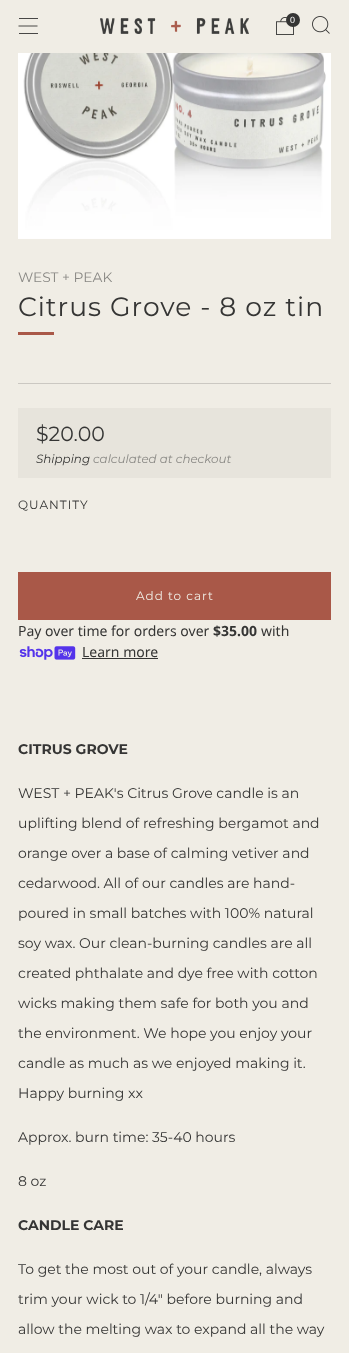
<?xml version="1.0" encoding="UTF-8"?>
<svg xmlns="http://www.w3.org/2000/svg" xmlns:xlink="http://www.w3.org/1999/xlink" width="349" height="1353">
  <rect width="100%" height="100%" fill="#f0ede5" />
  <rect x="19" y="18" width="19" height="1" fill="#484746" />
  <path d="M 18.5 26 h 19" fill="none" stroke="#353534" stroke-width="0.9" />
  <rect x="19" y="33" width="19" height="1" fill="#484746" />
  <image x="100" y="18" width="149" height="16" xlink:href="image1.png" />
  <image x="276" y="17" width="18" height="18" xlink:href="image2.png" />
  <circle cx="293" cy="20" r="7" fill="#353534" />
  <image x="312" y="16" width="18" height="18" xlink:href="image3.png" />
  <image x="18" y="53" width="313" height="186" xlink:href="image4.png" />
  <rect x="18" y="332" width="36" height="3" fill="#a95848" />
  <rect x="18" y="383" width="313" height="1" fill="#cbc8c2" />
  <rect x="18" y="408" width="313" height="70" fill="#e7e4dc" />
  <rect x="18" y="572" width="313" height="48" fill="#a95848" />
  <image x="19" y="646" width="57" height="14" xlink:href="image5.png" />
  <rect x="82" y="658" width="76" height="1" fill="#353534" />
  <text x="290" y="23" style="font-family: Liberation Sans; font-size: 9px; fill: #ffffff">0</text>
  <text x="18" y="282" style="font-family: Montserrat; font-size: 13.75px; fill: #898884">WEST + PEAK</text>
  <text x="18" y="316" style="font-family: Montserrat; font-size: 26.6px; letter-spacing: 1px; fill: #353534">Citrus Grove - 8 oz tin</text>
  <text x="36" y="441" style="font-family: Montserrat; font-size: 20.5px; fill: #353534">$20.00</text>
  <text x="36" y="463" style="font-family: Montserrat; font-size: 11.9px; font-style: italic; fill: #353534">Shipping</text>
  <text x="93" y="463" style="font-family: Montserrat; font-size: 11.9px; font-style: italic; fill: #898884">calculated at checkout</text>
  <text x="18" y="509" style="font-family: Montserrat; font-size: 12px; letter-spacing: 1px; fill: #353534">QUANTITY</text>
  <text x="136" y="600" style="font-family: Montserrat; font-size: 12px; letter-spacing: 1px; fill: #f0ede5">Add to cart</text>
  <text x="18" y="636" style="font-family: Noto Sans; font-size: 14px; fill: #353534">Pay over time for orders over</text>
  <text x="213" y="636" style="font-family: Noto Sans; font-size: 14px; font-weight: bold; fill: #353534">$35.00</text>
  <text x="261" y="636" style="font-family: Noto Sans; font-size: 14px; fill: #353534">with</text>
  <text x="82" y="657" style="font-family: Noto Sans; font-size: 14px; fill: #353534">Learn more</text>
  <text x="18" y="754" style="font-family: Montserrat; font-size: 14px; font-weight: bold; fill: #353534">CITRUS GROVE</text>
  <text x="18" y="798" style="font-family: Montserrat; font-size: 14px; fill: #353534">WEST + PEAK's Citrus Grove candle is an</text>
  <text x="18" y="828" style="font-family: Montserrat; font-size: 14px; fill: #353534">uplifting blend of refreshing bergamot and</text>
  <text x="18" y="858" style="font-family: Montserrat; font-size: 14px; fill: #353534">orange over a base of calming vetiver and</text>
  <text x="18" y="888" style="font-family: Montserrat; font-size: 14px; fill: #353534">cedarwood. All of our candles are hand-</text>
  <text x="18" y="918" style="font-family: Montserrat; font-size: 14px; fill: #353534">poured in small batches with 100% natural</text>
  <text x="18" y="948" style="font-family: Montserrat; font-size: 14px; fill: #353534">soy wax. Our clean-burning candles are all</text>
  <text x="18" y="978" style="font-family: Montserrat; font-size: 14px; fill: #353534">created phthalate and dye free with cotton</text>
  <text x="18" y="1008" style="font-family: Montserrat; font-size: 14px; fill: #353534">wicks making them safe for both you and</text>
  <text x="18" y="1038" style="font-family: Montserrat; font-size: 14px; fill: #353534">the environment. We hope you enjoy your</text>
  <text x="18" y="1068" style="font-family: Montserrat; font-size: 14px; fill: #353534">candle as much as we enjoyed making it.</text>
  <text x="18" y="1098" style="font-family: Montserrat; font-size: 14px; fill: #353534">Happy burning xx</text>
  <text x="18" y="1142" style="font-family: Montserrat; font-size: 14px; fill: #353534">Approx. burn time: 35-40 hours</text>
  <text x="18" y="1186" style="font-family: Montserrat; font-size: 14px; fill: #353534">8 oz</text>
  <text x="18" y="1230" style="font-family: Montserrat; font-size: 14px; font-weight: bold; fill: #353534">CANDLE CARE</text>
  <text x="18" y="1274" style="font-family: Montserrat; font-size: 14px; fill: #353534">To get the most out of your candle, always</text>
  <text x="18" y="1304" style="font-family: Montserrat; font-size: 14px; fill: #353534">trim your wick to 1/4" before burning and</text>
  <text x="18" y="1334" style="font-family: Montserrat; font-size: 14px; fill: #353534">allow the melting wax to expand all the way</text>
</svg>
